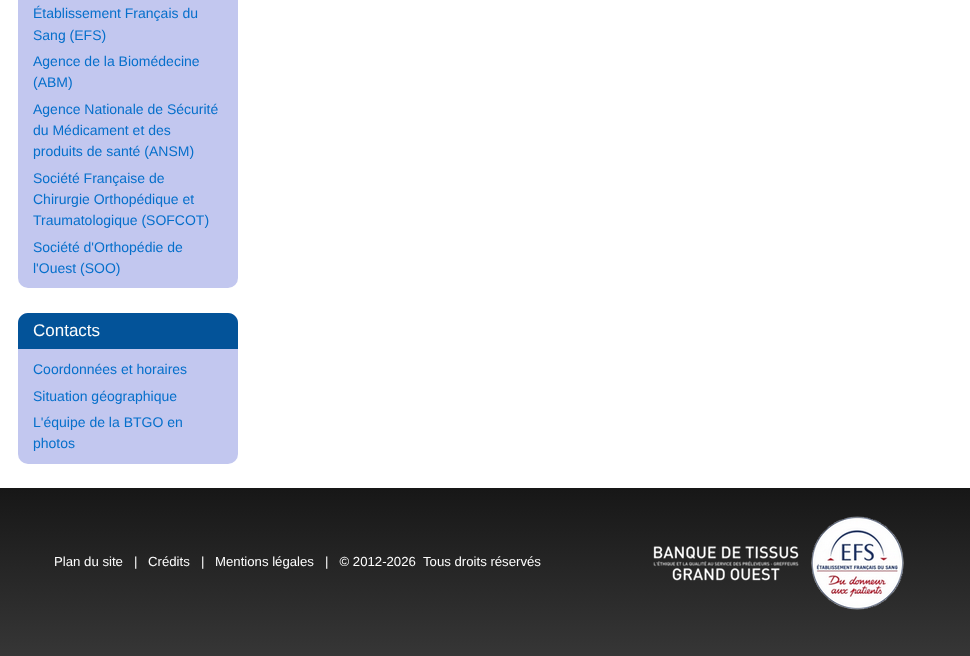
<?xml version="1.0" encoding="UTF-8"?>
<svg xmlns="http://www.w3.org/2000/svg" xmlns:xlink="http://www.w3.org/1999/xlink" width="970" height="656">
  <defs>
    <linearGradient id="g1" gradientUnits="userSpaceOnUse" x1="485" y1="488" x2="485" y2="656"><stop offset="0" stop-color="#171717" /><stop offset="1" stop-color="#363636" /></linearGradient>
  </defs>
  <rect width="100%" height="100%" fill="#ffffff" />
  <rect x="18" y="-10" width="220" height="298" rx="10" fill="#c2c7ef" />
  <rect x="18" y="313" width="220" height="151" rx="10" fill="#c2c7ef" />
  <path d="M 28 313 h 200 c 5.5 0 10 4.5 10 10 v 26 h -220 v -26 c 0 -5.5 4.5 -10 10 -10 z" fill="#035399" />
  <rect y="488" width="970" height="168" fill="url(#g1)" />
  <image x="653" y="546" width="146" height="35" xlink:href="image1.png" />
  <image x="811" y="516" width="93" height="94" xlink:href="image2.png" />
  <text x="33" y="18" style="font-family: Liberation Sans; font-size: 14px; fill: #056fcb">Établissement Français du</text>
  <text x="33" y="40" style="font-family: Liberation Sans; font-size: 14px; fill: #056fcb">Sang (EFS)</text>
  <text x="33" y="66" style="font-family: Liberation Sans; font-size: 14px; fill: #056fcb">Agence de la Biomédecine</text>
  <text x="33" y="87" style="font-family: Liberation Sans; font-size: 14px; fill: #056fcb">(ABM)</text>
  <text x="33" y="114" style="font-family: Liberation Sans; font-size: 14px; fill: #056fcb">Agence Nationale de Sécurité</text>
  <text x="33" y="135" style="font-family: Liberation Sans; font-size: 14px; fill: #056fcb">du Médicament et des</text>
  <text x="33" y="156" style="font-family: Liberation Sans; font-size: 14px; fill: #056fcb">produits de santé (ANSM)</text>
  <text x="33" y="183" style="font-family: Liberation Sans; font-size: 14px; fill: #056fcb">Société Française de</text>
  <text x="33" y="204" style="font-family: Liberation Sans; font-size: 14px; fill: #056fcb">Chirurgie Orthopédique et</text>
  <text x="33" y="225" style="font-family: Liberation Sans; font-size: 14px; fill: #056fcb">Traumatologique (SOFCOT)</text>
  <text x="33" y="252" style="font-family: Liberation Sans; font-size: 14px; fill: #056fcb">Société d'Orthopédie de</text>
  <text x="33" y="273" style="font-family: Liberation Sans; font-size: 14px; fill: #056fcb">l'Ouest (SOO)</text>
  <text x="33" y="336" style="font-family: Liberation Sans; font-size: 17px; fill: #fcfcfc">Contacts</text>
  <text x="33" y="374" style="font-family: Liberation Sans; font-size: 14px; fill: #056fcb">Coordonnées et horaires</text>
  <text x="33" y="401" style="font-family: Liberation Sans; font-size: 14px; fill: #056fcb">Situation géographique</text>
  <text x="33" y="427" style="font-family: Liberation Sans; font-size: 14px; fill: #056fcb">L'équipe de la BTGO en</text>
  <text x="33" y="448" style="font-family: Liberation Sans; font-size: 14px; fill: #056fcb">photos</text>
  <text x="54" y="566" style="font-family: Liberation Sans; font-size: 13.2px; fill: #fcfcfc">Plan du site</text>
  <text x="134" y="566" style="font-family: Liberation Sans; font-size: 13.2px; fill: #fcfcfc">|</text>
  <text x="148" y="566" style="font-family: Liberation Sans; font-size: 13.2px; fill: #fcfcfc">Crédits</text>
  <text x="201" y="566" style="font-family: Liberation Sans; font-size: 13.2px; fill: #fcfcfc">|</text>
  <text x="215" y="566" style="font-family: Liberation Sans; font-size: 13.2px; fill: #fcfcfc">Mentions légales</text>
  <text x="325" y="566" style="font-family: Liberation Sans; font-size: 13.2px; fill: #fcfcfc" xml:space="preserve">|   © 2012-2026  Tous droits réservés</text>
</svg>
